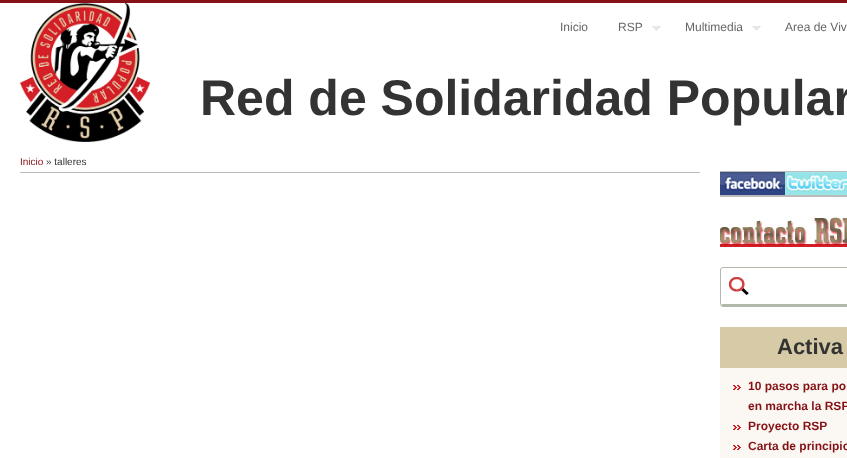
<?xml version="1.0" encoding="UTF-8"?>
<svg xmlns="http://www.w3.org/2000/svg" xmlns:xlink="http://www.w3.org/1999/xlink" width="847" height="458">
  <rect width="100%" height="100%" fill="#ffffff" />
  <rect width="847" height="3" fill="#861116" />
  <image x="652" y="26" width="9" height="5" xlink:href="image1.png" />
  <image x="752" y="26" width="9" height="5" xlink:href="image1.png" />
  <image x="20" y="3" width="130" height="139" xlink:href="image2.png" />
  <rect x="20" y="172" width="680" height="1" fill="#bbbbbb" />
  <rect x="720" y="171" width="127" height="1" fill="#bbbbbb" />
  <rect x="720" y="195" width="127" height="2" fill="#bbbbbb" />
  <image x="720" y="172" width="65" height="23" xlink:href="image3.png" />
  <image x="785" y="172" width="62" height="23" xlink:href="image4.png" />
  <image x="720" y="217" width="127" height="30" xlink:href="image5.png" />
  <image x="729" y="277" width="20" height="18" xlink:href="image6.png" />
  <rect x="720.5" y="267.5" width="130" height="39" rx="2.5" fill="none" stroke="#b3b8ac" />
  <rect x="722" y="304" width="125" height="2" fill="#b3b8ac" />
  <rect x="720" y="327" width="127" height="41" fill="#d7caa7" />
  <rect x="720" y="368" width="127" height="90" fill="#fbf8f3" />
  <image x="733" y="385" width="8" height="5" xlink:href="image7.png" />
  <image x="733" y="425" width="8" height="5" xlink:href="image7.png" />
  <image x="733" y="445" width="8" height="5" xlink:href="image7.png" />
  <text x="560" y="31" style="font-family: Liberation Sans; font-size: 12px; fill: #666666">Inicio</text>
  <text x="618" y="31" style="font-family: Liberation Sans; font-size: 12px; fill: #666666">RSP</text>
  <text x="685" y="31" style="font-family: Liberation Sans; font-size: 12px; fill: #666666">Multimedia</text>
  <text x="785" y="31" style="font-family: Liberation Sans; font-size: 12px; fill: #666666">Area de Viv</text>
  <text x="200" y="115" style="font-family: Liberation Sans; font-size: 50px; font-weight: bold; fill: #333333">Red de Solidaridad Popular</text>
  <text x="20" y="165" style="font-family: Liberation Sans; font-size: 10px; fill: #861116">Inicio</text>
  <text x="46" y="165" style="font-family: Liberation Sans; font-size: 10px; fill: #333333">» talleres</text>
  <text x="777" y="354" style="font-family: Liberation Sans; font-size: 22px; font-weight: bold; fill: #333333">Activa</text>
  <text x="748" y="390" style="font-family: Liberation Sans; font-size: 12px; font-weight: bold; fill: #861116">10 pasos para po</text>
  <text x="748" y="410" style="font-family: Liberation Sans; font-size: 12px; font-weight: bold; fill: #861116">en marcha la RSP</text>
  <text x="748" y="430" style="font-family: Liberation Sans; font-size: 12px; font-weight: bold; fill: #861116">Proyecto RSP</text>
  <text x="748" y="450" style="font-family: Liberation Sans; font-size: 12px; font-weight: bold; fill: #861116">Carta de principio</text>
</svg>
